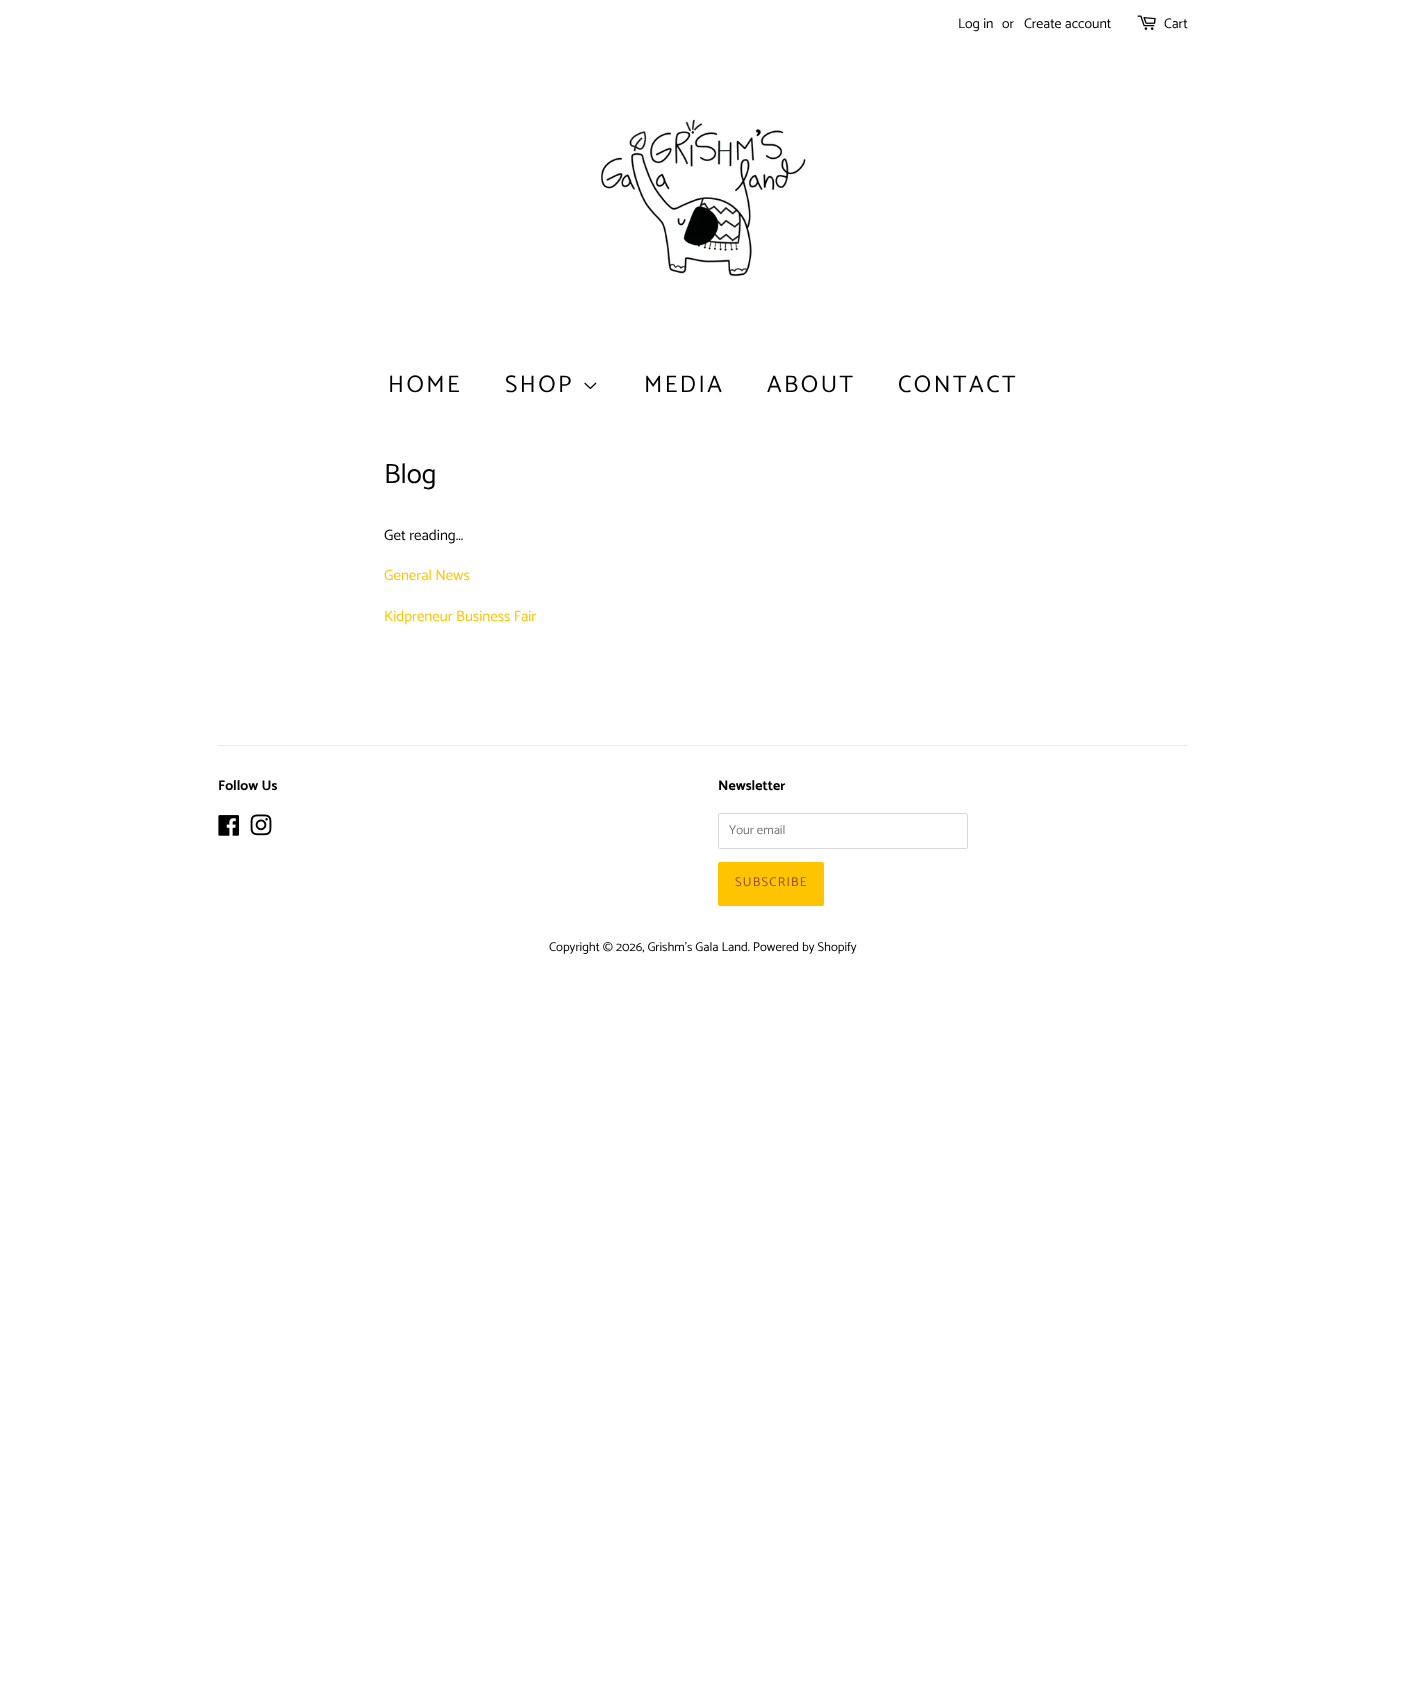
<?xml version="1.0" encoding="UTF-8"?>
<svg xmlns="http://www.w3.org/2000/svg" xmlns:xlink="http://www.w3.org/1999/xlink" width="1405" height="1701">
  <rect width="100%" height="100%" fill="#ffffff" />
  <image x="1137" y="15" width="19" height="15" xlink:href="image1.png" />
  <image x="600" y="119" width="206" height="158" xlink:href="image2.png" />
  <image x="584" y="382" width="13" height="8" xlink:href="image3.png" />
  <rect x="218" y="745" width="970" height="1" fill="#ebebeb" />
  <image x="218" y="815" width="21" height="21" xlink:href="image4.png" />
  <image x="250" y="814" width="22" height="22" xlink:href="image5.png" />
  <rect x="718.5" y="813.5" width="249" height="35" rx="1.5" fill="none" stroke="#d9d9d9" />
  <rect x="718" y="862" width="106" height="44" rx="2" fill="#ffc400" />
  <text x="958" y="28" style="font-family: Catamaran; font-size: 14px; fill: #000000">Log in</text>
  <text x="1002" y="28" style="font-family: Catamaran; font-size: 14px; fill: #000000">or</text>
  <text x="1024" y="28" style="font-family: Catamaran; font-size: 14px; fill: #000000">Create account</text>
  <text x="1164" y="28" style="font-family: Catamaran; font-size: 14px; fill: #000000">Cart</text>
  <text x="388" y="392" style="font-family: Catamaran; font-size: 24px; letter-spacing: 2.5px; fill: #000000">HOME</text>
  <text x="505" y="392" style="font-family: Catamaran; font-size: 24px; letter-spacing: 2.5px; fill: #000000">SHOP</text>
  <text x="644" y="392" style="font-family: Catamaran; font-size: 24px; letter-spacing: 2.5px; fill: #000000">MEDIA</text>
  <text x="767" y="392" style="font-family: Catamaran; font-size: 24px; letter-spacing: 2.5px; fill: #000000">ABOUT</text>
  <text x="898" y="392" style="font-family: Catamaran; font-size: 24px; letter-spacing: 2.5px; fill: #000000">CONTACT</text>
  <text x="384" y="483" style="font-family: Catamaran; font-size: 28px; fill: #000000">Blog</text>
  <text x="384" y="540" style="font-family: Catamaran; font-size: 15px; fill: #000000">Get reading...</text>
  <text x="384" y="580" style="font-family: Catamaran; font-size: 15px; fill: #ffc400">General News</text>
  <text x="384" y="621" style="font-family: Catamaran; font-size: 15px; fill: #ffc400">Kidpreneur Business Fair</text>
  <text x="218" y="790" style="font-family: Catamaran; font-size: 14px; font-weight: bold; fill: #000000">Follow Us</text>
  <text x="718" y="790" style="font-family: Catamaran; font-size: 14px; font-weight: bold; fill: #000000">Newsletter</text>
  <text x="729" y="834" style="font-family: Catamaran; font-size: 12.75px; fill: #757575">Your email</text>
  <text x="735" y="886" style="font-family: Catamaran; font-size: 12.75px; letter-spacing: 1.25px; fill: #934a30">SUBSCRIBE</text>
  <text x="549" y="951" style="font-family: Catamaran; font-size: 12.75px; fill: #000000">Copyright © 2026, Grishm's Gala Land. Powered by Shopify</text>
</svg>
